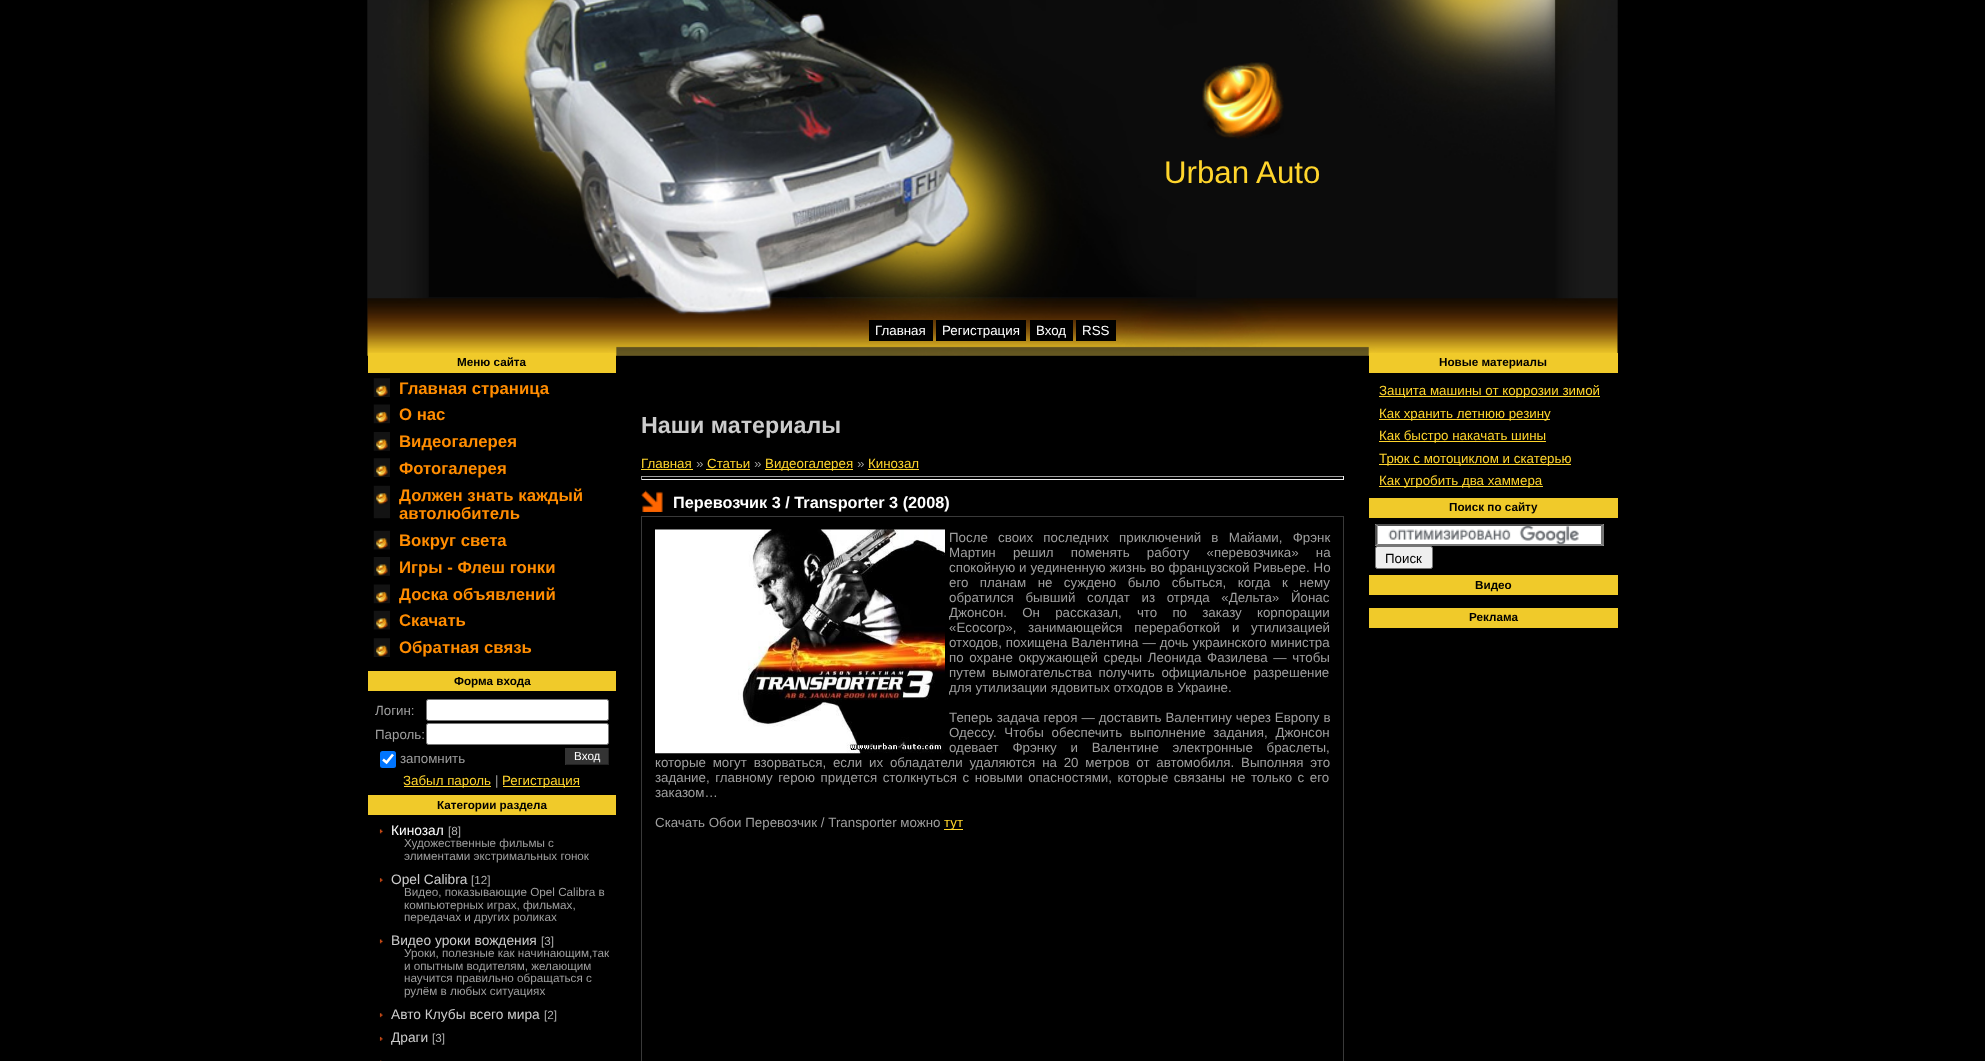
<?xml version="1.0" encoding="UTF-8"?>
<svg xmlns="http://www.w3.org/2000/svg" xmlns:xlink="http://www.w3.org/1999/xlink" width="1985" height="1061">
  <rect width="100%" height="100%" fill="#000000" />
  <image x="367" y="0" width="1251" height="356" xlink:href="image1.png" />
  <image x="367" y="0" width="1251" height="356" xlink:href="image2.png" />
  <image x="1202" y="62" width="82" height="78" xlink:href="image3.png" />
  <rect x="869" y="320" width="64" height="21" fill="#000000" />
  <rect x="936" y="320" width="90" height="21" fill="#000000" />
  <rect x="1030" y="320" width="43" height="21" fill="#000000" />
  <rect x="1076" y="320" width="40" height="21" fill="#000000" />
  <rect x="368" y="353" width="248" height="20" fill="#f0ca2a" />
  <image x="373" y="378" width="17" height="19" xlink:href="image4.png" />
  <image x="373" y="404" width="17" height="20" xlink:href="image5.png" />
  <image x="373" y="432" width="17" height="19" xlink:href="image6.png" />
  <image x="373" y="458" width="17" height="19" xlink:href="image4.png" />
  <image x="373" y="485" width="17" height="34" xlink:href="image7.png" />
  <image x="373" y="530" width="17" height="20" xlink:href="image8.png" />
  <image x="373" y="557" width="17" height="19" xlink:href="image6.png" />
  <image x="373" y="584" width="17" height="20" xlink:href="image5.png" />
  <image x="373" y="610" width="17" height="20" xlink:href="image9.png" />
  <image x="373" y="638" width="17" height="19" xlink:href="image4.png" />
  <rect x="368" y="671" width="248" height="20" fill="#f0ca2a" />
  <rect x="426.5" y="699.5" width="182" height="21" rx="2" fill="#ffffff" stroke="#767676" />
  <rect x="426.5" y="723.5" width="182" height="21" rx="2" fill="#ffffff" stroke="#767676" />
  <rect x="380" y="751" width="16" height="17" rx="2.5" fill="#0075ff" />
  <path d="M 383 759.5 l 3.5 3 l 6.5 -8" fill="none" stroke="#ffffff" stroke-width="2.6" />
  <rect x="566" y="748" width="42" height="16" fill="#333333" />
  <rect x="608" y="748" width="1" height="17" fill="#222222" />
  <rect x="565" y="764" width="44" height="1" fill="#222222" />
  <rect x="565" y="748" width="1" height="17" fill="#333333" />
  <rect x="404" y="786" width="87" height="1" fill="#ffd52c" />
  <rect x="503" y="786" width="77" height="1" fill="#ffd52c" />
  <rect x="368" y="795" width="248" height="20" fill="#f0ca2a" />
  <image x="379" y="829" width="4" height="5" xlink:href="image10.png" />
  <image x="379" y="878" width="4" height="5" xlink:href="image11.png" />
  <image x="379" y="939" width="4" height="5" xlink:href="image10.png" />
  <image x="379" y="1013" width="4" height="5" xlink:href="image11.png" />
  <image x="379" y="1036" width="4" height="5" xlink:href="image12.png" />
  <image x="380" y="1060" width="2" height="1" xlink:href="image13.png" />
  <rect x="641" y="469" width="52" height="1" fill="#ffd52c" />
  <rect x="706" y="469" width="44" height="1" fill="#ffd52c" />
  <rect x="765" y="469" width="88" height="1" fill="#ffd52c" />
  <rect x="868" y="469" width="51" height="1" fill="#ffd52c" />
  <rect x="641" y="476" width="703" height="1" fill="#9f9f9f" />
  <rect x="1343" y="476" width="1" height="4" fill="#eeeeee" />
  <rect x="641" y="479" width="703" height="1" fill="#eeeeee" />
  <rect x="641" y="476" width="1" height="4" fill="#9f9f9f" />
  <image x="641" y="490" width="22" height="22" xlink:href="image14.png" />
  <rect x="641.5" y="516.5" width="702" height="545" fill="none" stroke="#393939" />
  <image x="655" y="529" width="290" height="225" xlink:href="image15.png" />
  <rect x="944" y="829" width="19" height="1" fill="#ffd52c" />
  <rect x="1369" y="353" width="249" height="20" fill="#f0ca2a" />
  <rect x="1379" y="396" width="221" height="1" fill="#ffd52c" />
  <rect x="1379" y="419" width="171" height="1" fill="#ffd52c" />
  <rect x="1379" y="441" width="167" height="1" fill="#ffd52c" />
  <rect x="1379" y="464" width="192" height="1" fill="#ffd52c" />
  <rect x="1379" y="486" width="164" height="1" fill="#ffd52c" />
  <rect x="1369" y="498" width="249" height="20" fill="#f0ca2a" />
  <rect x="1375" y="524" width="229" height="22" fill="#ffffff" />
  <image x="1388" y="526" width="191" height="18" xlink:href="image16.png" />
  <path d="M 1375 524 h 229 l -3 2 h -223 z" fill="#4f4f4f" />
  <path d="M 1604 524 v 22 l -3 -2 v -18 z" fill="#767676" />
  <path d="M 1604 546 h -229 l 3 -2 h 223 z" fill="#767676" />
  <path d="M 1375 546 v -22 l 2.5 2 v 18 z" fill="#4f4f4f" />
  <rect x="1375.5" y="546.5" width="57" height="22" rx="2" fill="#efefef" stroke="#767676" />
  <rect x="1369" y="575" width="249" height="20" fill="#f0ca2a" />
  <rect x="1369" y="608" width="249" height="20" fill="#f0ca2a" />
  <text x="1164" y="183" style="font-family: Liberation Sans; font-size: 31.25px; fill: #ffd52c">Urban Auto</text>
  <text x="875" y="335" style="font-family: Liberation Sans; font-size: 13.33px; fill: #ffffff">Главная</text>
  <text x="942" y="335" style="font-family: Liberation Sans; font-size: 13.33px; fill: #ffffff">Регистрация</text>
  <text x="1036" y="335" style="font-family: Liberation Sans; font-size: 13.33px; fill: #ffffff">Вход</text>
  <text x="1082" y="335" style="font-family: Liberation Sans; font-size: 13.33px; fill: #ffffff">RSS</text>
  <text x="457" y="366" style="font-family: Liberation Sans; font-size: 11.7px; font-weight: bold; fill: #000000">Меню сайта</text>
  <text x="399" y="394" style="font-family: Liberation Sans; font-size: 16.75px; font-weight: bold; fill: #ff8c00">Главная страница</text>
  <text x="399" y="420" style="font-family: Liberation Sans; font-size: 16.75px; font-weight: bold; fill: #ff8c00">О нас</text>
  <text x="399" y="447" style="font-family: Liberation Sans; font-size: 16.75px; font-weight: bold; fill: #ff8c00">Видеогалерея</text>
  <text x="399" y="474" style="font-family: Liberation Sans; font-size: 16.75px; font-weight: bold; fill: #ff8c00">Фотогалерея</text>
  <text x="399" y="501" style="font-family: Liberation Sans; font-size: 16.75px; font-weight: bold; fill: #ff8c00">Должен знать каждый</text>
  <text x="399" y="519" style="font-family: Liberation Sans; font-size: 16.75px; font-weight: bold; fill: #ff8c00">автолюбитель</text>
  <text x="399" y="546" style="font-family: Liberation Sans; font-size: 16.75px; font-weight: bold; fill: #ff8c00">Вокруг света</text>
  <text x="399" y="573" style="font-family: Liberation Sans; font-size: 16.75px; font-weight: bold; fill: #ff8c00">Игры - Флеш гонки</text>
  <text x="399" y="600" style="font-family: Liberation Sans; font-size: 16.75px; font-weight: bold; fill: #ff8c00">Доска объявлений</text>
  <text x="399" y="626" style="font-family: Liberation Sans; font-size: 16.75px; font-weight: bold; fill: #ff8c00">Скачать</text>
  <text x="399" y="653" style="font-family: Liberation Sans; font-size: 16.75px; font-weight: bold; fill: #ff8c00">Обратная связь</text>
  <text x="454" y="685" style="font-family: Liberation Sans; font-size: 11.7px; font-weight: bold; fill: #000000">Форма входа</text>
  <text x="375" y="715" style="font-family: Liberation Sans; font-size: 13.33px; fill: #9f9f9f">Логин:</text>
  <text x="375" y="739" style="font-family: Liberation Sans; font-size: 13.33px; fill: #9f9f9f">Пароль:</text>
  <text x="400" y="763" style="font-family: Liberation Sans; font-size: 13.33px; fill: #9f9f9f">запомнить</text>
  <text x="574" y="760" style="font-family: Liberation Sans; font-size: 11.7px; fill: #ffffff">Вход</text>
  <text x="403" y="785" style="font-family: Liberation Sans; font-size: 13.33px; fill: #ffd52c">Забыл пароль</text>
  <text x="495" y="785" style="font-family: Liberation Sans; font-size: 13.33px; fill: #9f9f9f">|</text>
  <text x="502" y="785" style="font-family: Liberation Sans; font-size: 13.33px; fill: #ffd52c">Регистрация</text>
  <text x="437" y="809" style="font-family: Liberation Sans; font-size: 11.7px; font-weight: bold; fill: #000000">Категории раздела</text>
  <text x="391" y="835" style="font-family: Liberation Sans; font-size: 13.75px; fill: #ffffff">Кинозал</text>
  <text x="448" y="835" style="font-family: Liberation Sans; font-size: 11.7px; fill: #b2b2b2">[8]</text>
  <text x="404" y="847" style="font-family: Liberation Sans; font-size: 11.7px; fill: #9f9f9f">Художественные фильмы с</text>
  <text x="404" y="860" style="font-family: Liberation Sans; font-size: 11.7px; fill: #9f9f9f">элиментами экстримальных гонок</text>
  <text x="391" y="884" style="font-family: Liberation Sans; font-size: 13.75px; fill: #cccccc">Opel Calibra</text>
  <text x="471" y="884" style="font-family: Liberation Sans; font-size: 11.7px; fill: #b2b2b2">[12]</text>
  <text x="404" y="896" style="font-family: Liberation Sans; font-size: 11.7px; fill: #9f9f9f">Видео, показывающие Opel Calibra в</text>
  <text x="404" y="909" style="font-family: Liberation Sans; font-size: 11.7px; fill: #9f9f9f">компьютерных играх, фильмах,</text>
  <text x="404" y="921" style="font-family: Liberation Sans; font-size: 11.7px; fill: #9f9f9f">передачах и других роликах</text>
  <text x="391" y="945" style="font-family: Liberation Sans; font-size: 13.75px; fill: #cccccc">Видео уроки вождения</text>
  <text x="541" y="945" style="font-family: Liberation Sans; font-size: 11.7px; fill: #b2b2b2">[3]</text>
  <text x="404" y="957" style="font-family: Liberation Sans; font-size: 11.7px; fill: #9f9f9f">Уроки, полезные как начинающим,так</text>
  <text x="404" y="970" style="font-family: Liberation Sans; font-size: 11.7px; fill: #9f9f9f">и опытным водителям, желающим</text>
  <text x="404" y="982" style="font-family: Liberation Sans; font-size: 11.7px; fill: #9f9f9f">научится правильно обращаться с</text>
  <text x="404" y="995" style="font-family: Liberation Sans; font-size: 11.7px; fill: #9f9f9f">рулём в любых ситуациях</text>
  <text x="391" y="1019" style="font-family: Liberation Sans; font-size: 13.75px; fill: #cccccc">Авто Клубы всего мира</text>
  <text x="544" y="1019" style="font-family: Liberation Sans; font-size: 11.7px; fill: #b2b2b2">[2]</text>
  <text x="391" y="1042" style="font-family: Liberation Sans; font-size: 13.75px; fill: #cccccc">Драги</text>
  <text x="432" y="1042" style="font-family: Liberation Sans; font-size: 11.7px; fill: #b2b2b2">[3]</text>
  <text x="641" y="433" style="font-family: Liberation Sans; font-size: 23.25px; font-weight: bold; fill: #cccccc">Наши материалы</text>
  <text x="641" y="468" style="font-family: Liberation Sans; font-size: 13.33px; fill: #ffd52c">Главная</text>
  <text x="696" y="468" style="font-family: Liberation Sans; font-size: 13.33px; fill: #9f9f9f">»</text>
  <text x="707" y="468" style="font-family: Liberation Sans; font-size: 13.33px; fill: #ffd52c">Статьи</text>
  <text x="754" y="468" style="font-family: Liberation Sans; font-size: 13.33px; fill: #9f9f9f">»</text>
  <text x="765" y="468" style="font-family: Liberation Sans; font-size: 13.33px; fill: #ffd52c">Видеогалерея</text>
  <text x="857" y="468" style="font-family: Liberation Sans; font-size: 13.33px; fill: #9f9f9f">»</text>
  <text x="868" y="468" style="font-family: Liberation Sans; font-size: 13.33px; fill: #ffd52c">Кинозал</text>
  <text x="673" y="508" style="font-family: Liberation Sans; font-size: 16.25px; font-weight: bold; fill: #ffffff">Перевозчик 3 / Transporter 3 (2008)</text>
  <text x="949" y="542" word-spacing="6.5" style="font-family: Liberation Sans; font-size: 13.33px; fill: #9f9f9f">После своих последних приключений в Майами, Фрэнк</text>
  <text x="949" y="557" word-spacing="13.5" style="font-family: Liberation Sans; font-size: 13.33px; fill: #9f9f9f">Мартин решил поменять работу «перевозчика» на</text>
  <text x="949" y="572" word-spacing="0.25" style="font-family: Liberation Sans; font-size: 13.33px; fill: #9f9f9f">спокойную и уединенную жизнь во французской Ривьере. Но</text>
  <text x="949" y="587" word-spacing="7.75" style="font-family: Liberation Sans; font-size: 13.33px; fill: #9f9f9f">его планам не суждено было сбыться, когда к нему</text>
  <text x="949" y="602" word-spacing="8" style="font-family: Liberation Sans; font-size: 13.33px; fill: #9f9f9f">обратился бывший солдат из отряда «Дельта» Йонас</text>
  <text x="949" y="617" word-spacing="11.5" style="font-family: Liberation Sans; font-size: 13.33px; fill: #9f9f9f">Джонсон. Он рассказал, что по заказу корпорации</text>
  <text x="949" y="632" word-spacing="8" style="font-family: Liberation Sans; font-size: 13.33px; fill: #9f9f9f">«Ecocorp», занимающейся переработкой и утилизацией</text>
  <text x="949" y="647" word-spacing="0.25" style="font-family: Liberation Sans; font-size: 13.33px; fill: #9f9f9f">отходов, похищена Валентина — дочь украинского министра</text>
  <text x="949" y="662" word-spacing="2" style="font-family: Liberation Sans; font-size: 13.33px; fill: #9f9f9f">по охране окружающей среды Леонида Фазилева — чтобы</text>
  <text x="949" y="677" word-spacing="3" style="font-family: Liberation Sans; font-size: 13.33px; fill: #9f9f9f">путем вымогательства получить официальное разрешение</text>
  <text x="949" y="692" style="font-family: Liberation Sans; font-size: 13.33px; fill: #9f9f9f">для утилизации ядовитых отходов в Украине.</text>
  <text x="949" y="722" word-spacing="0.25" style="font-family: Liberation Sans; font-size: 13.33px; fill: #9f9f9f">Теперь задача героя — доставить Валентину через Европу в</text>
  <text x="949" y="737" word-spacing="4" style="font-family: Liberation Sans; font-size: 13.33px; fill: #9f9f9f">Одессу. Чтобы обеспечить выполнение задания, Джонсон</text>
  <text x="949" y="752" word-spacing="10" style="font-family: Liberation Sans; font-size: 13.33px; fill: #9f9f9f">одевает Фрэнку и Валентине электронные браслеты,</text>
  <text x="655" y="767" word-spacing="3.1" style="font-family: Liberation Sans; font-size: 13.33px; fill: #9f9f9f">которые могут взорваться, если их обладатели удаляются на 20 метров от автомобиля. Выполняя это</text>
  <text x="655" y="782" word-spacing="1.8" style="font-family: Liberation Sans; font-size: 13.33px; fill: #9f9f9f">задание, главному герою придется столкнуться с новыми опасностями, которые связаны не только с его</text>
  <text x="655" y="797" style="font-family: Liberation Sans; font-size: 13.33px; fill: #9f9f9f">заказом…</text>
  <text x="655" y="827" style="font-family: Liberation Sans; font-size: 13.33px; fill: #9f9f9f">Скачать Обои Перевозчик / Transporter можно</text>
  <text x="944" y="827" style="font-family: Liberation Sans; font-size: 13.33px; fill: #ffd52c">тут</text>
  <text x="1439" y="366" style="font-family: Liberation Sans; font-size: 11.7px; font-weight: bold; fill: #000000">Новые материалы</text>
  <text x="1379" y="395" style="font-family: Liberation Sans; font-size: 13.33px; fill: #ffd52c">Защита машины от коррозии зимой</text>
  <text x="1379" y="418" style="font-family: Liberation Sans; font-size: 13.33px; fill: #ffd52c">Как хранить летнюю резину</text>
  <text x="1379" y="440" style="font-family: Liberation Sans; font-size: 13.33px; fill: #ffd52c">Как быстро накачать шины</text>
  <text x="1379" y="463" style="font-family: Liberation Sans; font-size: 13.33px; fill: #ffd52c">Трюк с мотоциклом и скатерью</text>
  <text x="1379" y="485" style="font-family: Liberation Sans; font-size: 13.33px; fill: #ffd52c">Как угробить два хаммера</text>
  <text x="1449" y="511" style="font-family: Liberation Sans; font-size: 11.7px; font-weight: bold; fill: #000000">Поиск по сайту</text>
  <text x="1385" y="563" style="font-family: Liberation Sans; font-size: 13.33px; fill: #000000">Поиск</text>
  <text x="1475" y="589" style="font-family: Liberation Sans; font-size: 11.7px; font-weight: bold; fill: #000000">Видео</text>
  <text x="1469" y="621" style="font-family: Liberation Sans; font-size: 11.7px; font-weight: bold; fill: #000000">Реклама</text>
</svg>
